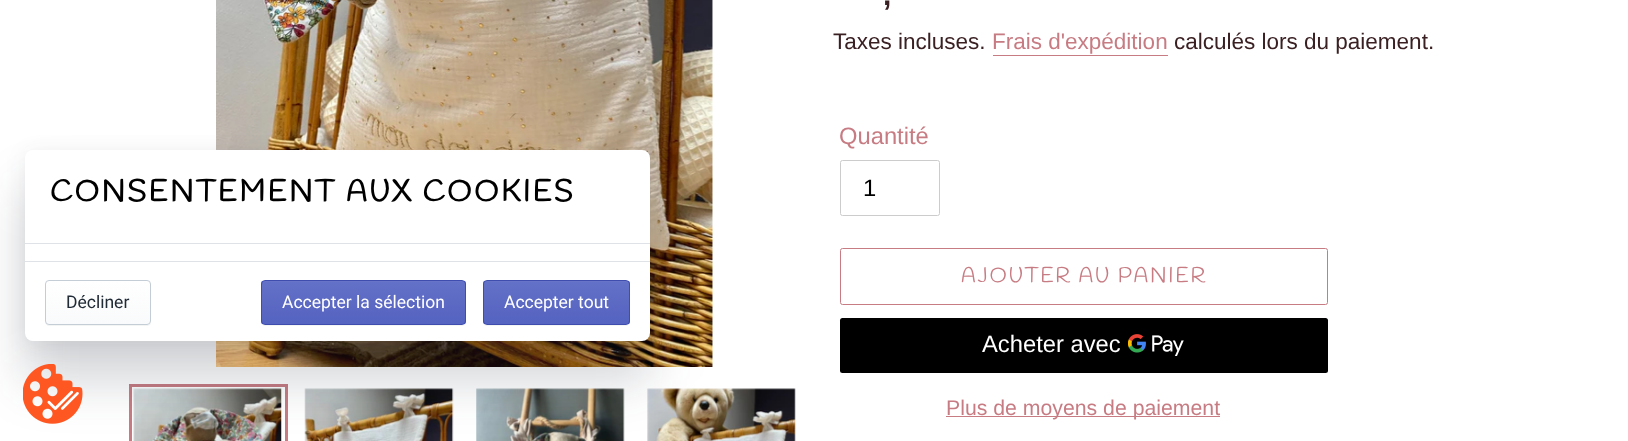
<?xml version="1.0" encoding="UTF-8"?>
<svg xmlns="http://www.w3.org/2000/svg" xmlns:xlink="http://www.w3.org/1999/xlink" width="1628" height="441">
  <defs>
    <clipPath id="clip1"><rect x="45" y="280" width="106" height="45" rx="4" /></clipPath>
    <linearGradient id="g1" gradientUnits="userSpaceOnUse" x1="98" y1="281" x2="98" y2="324"><stop offset="0" stop-color="#ffffff" /><stop offset="1" stop-color="#f9fafb" /></linearGradient>
    <clipPath id="clip2"><rect x="261" y="280" width="205" height="45" rx="4" /></clipPath>
    <linearGradient id="g2" gradientUnits="userSpaceOnUse" x1="364" y1="281" x2="364" y2="324"><stop offset="0" stop-color="#6371c7" /><stop offset="1" stop-color="#5563c1" /></linearGradient>
    <clipPath id="clip3"><rect x="483" y="280" width="147" height="45" rx="4" /></clipPath>
    <linearGradient id="g3" gradientUnits="userSpaceOnUse" x1="556" y1="281" x2="556" y2="324"><stop offset="0" stop-color="#6371c7" /><stop offset="1" stop-color="#5563c1" /></linearGradient>
  </defs>
  <rect width="100%" height="100%" fill="#ffffff" />
  <image x="216" y="0" width="497" height="367" xlink:href="image2.png" />
  <rect x="25" y="153" width="625" height="191" rx="8" fill="#202a36" fill-opacity="0.08" filter="blur(10px)" />
  <rect x="130.5" y="385.5" width="156" height="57" fill="none" stroke="#c77c83" stroke-width="3" />
  <image x="133" y="388" width="149" height="53" xlink:href="image3.png" />
  <image x="304" y="388" width="150" height="53" xlink:href="image4.png" />
  <image x="476" y="388" width="149" height="53" xlink:href="image5.png" />
  <image x="647" y="388" width="149" height="53" xlink:href="image6.png" />
  <rect x="25" y="189" width="625" height="191" rx="8" fill="#202a35" fill-opacity="0.2" filter="blur(25.5px)" />
  <rect x="25" y="150" width="625" height="191" rx="8" fill="#ffffff" />
  <rect x="25" y="243" width="625" height="1" fill="#dfe3e8" />
  <rect x="25" y="261" width="625" height="1" fill="#dfe3e8" />
  <path d="M 45 321 v 1 c 0 2 2 4 4 4 h 98 c 2 0 4 -1 4 -3 l -2 2 h -100 l -3 -1 z" fill="#f3f4f4" />
  <g clip-path="url(#clip1)">
    <rect x="45" y="281" width="106" height="43" fill="url(#g1)" />
  </g>
  <rect x="45.5" y="280.5" width="105" height="44" rx="3.5" fill="none" stroke="#c4cdd5" />
  <path d="M 261 284 v 38 c 0 2 2 4 4 4 h 197 c 2 0 4 -1 4 -3 c -1 1 -2 2 -4 2 h -197 c -5 0 -4 -7 -4 -10 z" fill="#f3f4f4" />
  <g clip-path="url(#clip2)">
    <rect x="261" y="281" width="205" height="43" fill="url(#g2)" />
  </g>
  <path d="M 265 282 h 197 c 2 0 3 2 3 3 v -1 c 0 -2 -1 -3 -3 -3 h -196 c -2 0 -3 1 -3 2 z" fill="#6774c8" />
  <rect x="261.5" y="280.5" width="204" height="44" rx="3.5" fill="none" stroke="#3f4eae" />
  <path d="M 483 324 c 1 1 2 2 4 2 h 139 c 2 0 4 -2 4 -4 v -1 c 0 2 -2 4 -4 4 h -140 z" fill="#f3f4f4" />
  <g clip-path="url(#clip3)">
    <rect x="483" y="281" width="147" height="43" fill="url(#g3)" />
  </g>
  <path d="M 486 282 h 140 c 2 0 3 2 3 3 c 0 -2 0 -4 -2 -4 h -141 c -2 0 -2 2 -2 4 c 0 -1 1 -3 2 -3 z" fill="#6774c8" />
  <rect x="483.5" y="280.5" width="146" height="44" rx="3.5" fill="none" stroke="#3f4eae" />
  <image x="23" y="364" width="60" height="60" xlink:href="image1.png" />
  <rect x="993" y="55" width="175" height="1" fill="#c77c83" />
  <rect x="840.5" y="160.5" width="99" height="55" rx="2" fill="none" stroke="#cccccc" />
  <rect x="840.5" y="248.5" width="487" height="56" rx="2" fill="none" stroke="#c77c83" />
  <rect x="840" y="318" width="488" height="55" rx="2.5" fill="#000000" />
  <image x="1128" y="334" width="56" height="22" xlink:href="image7.png" />
  <rect x="946" y="416" width="274" height="1" fill="#c77c83" />
  <text x="50" y="201" style="font-family: Handlee; font-size: 30px; font-weight: bold; letter-spacing: 2.5px; fill: #000000">CONSENTEMENT AUX COOKIES</text>
  <text x="66" y="308" style="font-family: Roboto; font-size: 17.5px; fill: #212b36">Décliner</text>
  <text x="282" y="308" style="font-family: Roboto; font-size: 17.5px; fill: #ffffff">Accepter la sélection</text>
  <text x="504" y="308" style="font-family: Roboto; font-size: 17.5px; fill: #ffffff">Accepter tout</text>
  <text x="883" y="5" style="font-family: Liberation Sans; font-size: 30px; font-weight: bold; fill: #3a2023">,</text>
  <text x="833" y="49" style="font-family: Liberation Sans; font-size: 22.5px; fill: #3a2023">Taxes incluses.</text>
  <text x="992" y="49" style="font-family: Liberation Sans; font-size: 22.5px; fill: #c77c83">Frais d'expédition</text>
  <text x="1174" y="49" style="font-family: Liberation Sans; font-size: 22.5px; fill: #3a2023">calculés lors du paiement.</text>
  <text x="839" y="144" style="font-family: Liberation Sans; font-size: 23.75px; fill: #c77c83">Quantité</text>
  <text x="863" y="196" style="font-family: Liberation Sans; font-size: 23.75px; fill: #000000">1</text>
  <text x="961" y="282" style="font-family: Handlee; font-size: 21.25px; letter-spacing: 1.75px; fill: #c77c83">AJOUTER AU PANIER</text>
  <text x="982" y="352" style="font-family: Liberation Sans; font-size: 23.75px; fill: #ffffff">Acheter avec</text>
  <text x="946" y="415" style="font-family: Liberation Sans; font-size: 21.25px; fill: #c77c83">Plus de moyens de paiement</text>
</svg>
